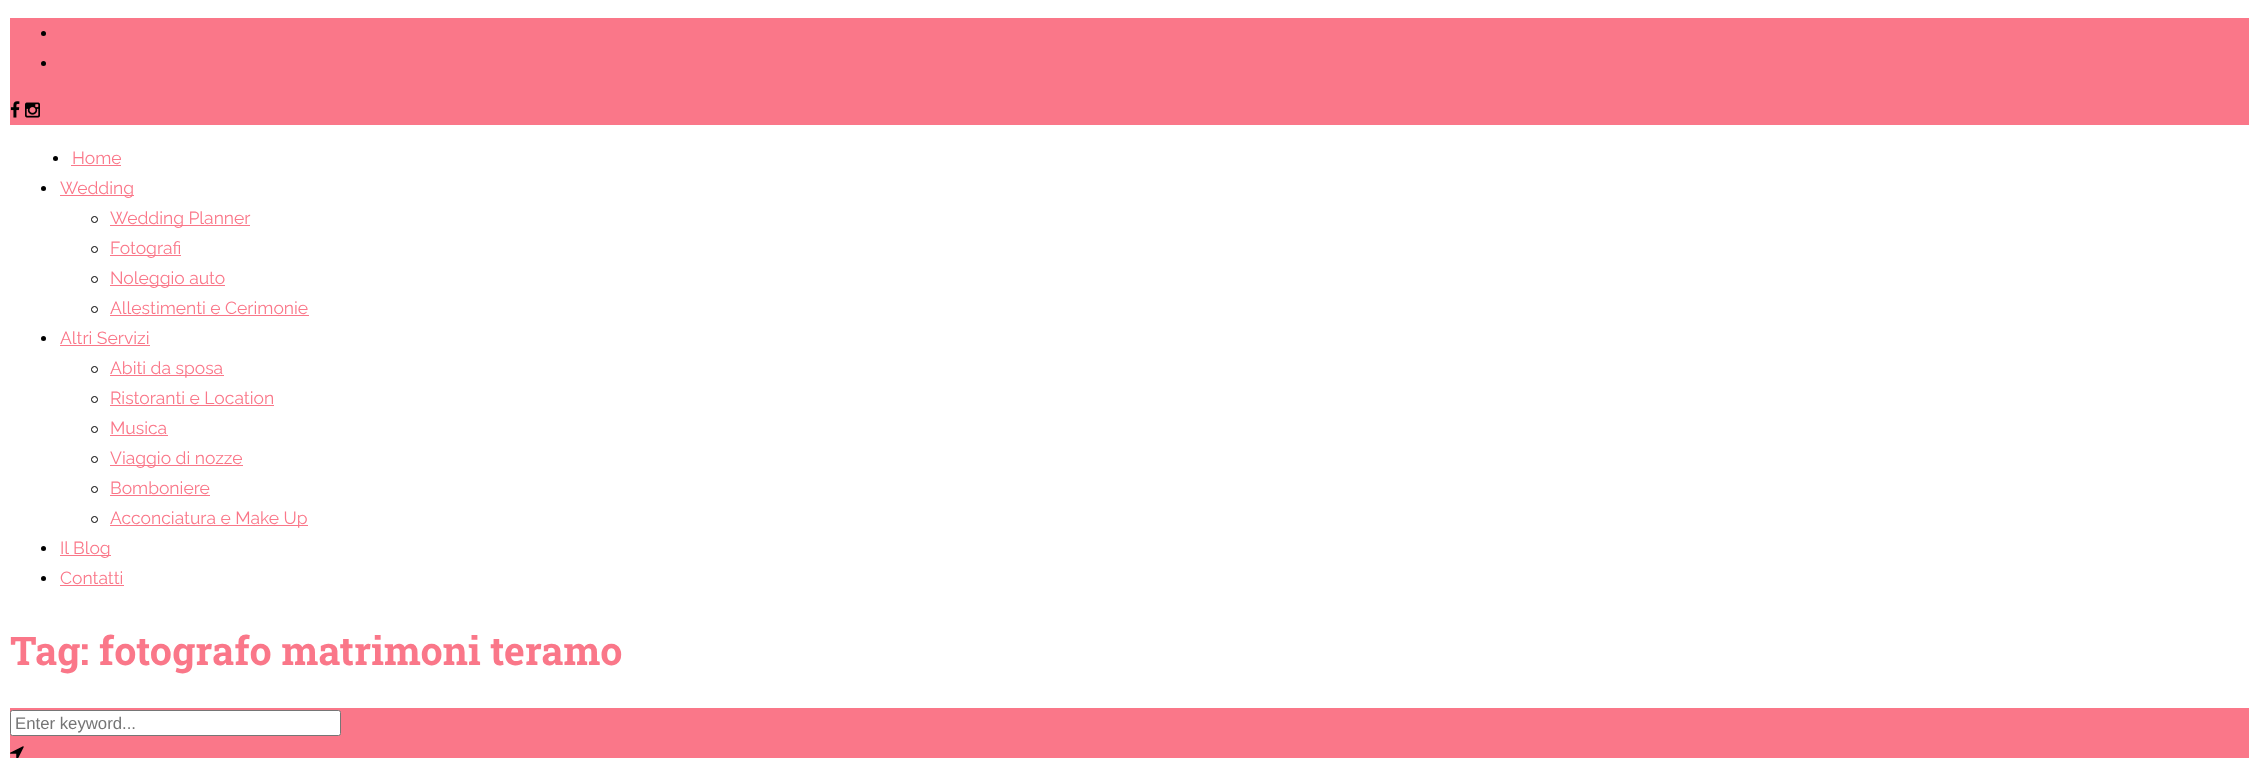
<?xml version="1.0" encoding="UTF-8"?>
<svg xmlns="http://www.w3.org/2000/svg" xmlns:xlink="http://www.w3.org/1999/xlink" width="2258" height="758">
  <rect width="100%" height="100%" fill="#ffffff" />
  <rect x="10" y="18" width="2239" height="107" fill="#fa7789" />
  <circle cx="43.5" cy="33.5" r="2.5" fill="#000000" />
  <circle cx="43.5" cy="63.5" r="2.5" fill="#000000" />
  <image x="10" y="101" width="10" height="17" xlink:href="image1.png" />
  <image x="25" y="102" width="15" height="16" xlink:href="image2.png" />
  <circle cx="55.5" cy="158.5" r="2.5" fill="#000000" />
  <rect x="71" y="165" width="50" height="1" fill="#fa7789" />
  <circle cx="43.5" cy="188.5" r="2.5" fill="#000000" />
  <rect x="60" y="195" width="74" height="1" fill="#fa7789" />
  <circle cx="94.5" cy="219.5" r="3" fill="none" stroke="#000000" />
  <rect x="110" y="225" width="140" height="1" fill="#fa7789" />
  <circle cx="94.5" cy="249.5" r="3" fill="none" stroke="#000000" />
  <rect x="110" y="255" width="71" height="1" fill="#fa7789" />
  <circle cx="94.5" cy="279.5" r="3" fill="none" stroke="#000000" />
  <rect x="110" y="285" width="115" height="1" fill="#fa7789" />
  <circle cx="94.5" cy="309.5" r="3" fill="none" stroke="#000000" />
  <rect x="110" y="315" width="199" height="1" fill="#fa7789" />
  <circle cx="43.5" cy="338.5" r="2.5" fill="#000000" />
  <rect x="60" y="345" width="90" height="1" fill="#fa7789" />
  <circle cx="94.5" cy="369.5" r="3" fill="none" stroke="#000000" />
  <rect x="110" y="375" width="114" height="1" fill="#fa7789" />
  <circle cx="94.5" cy="399.5" r="3" fill="none" stroke="#000000" />
  <rect x="110" y="405" width="164" height="1" fill="#fa7789" />
  <circle cx="94.5" cy="429.5" r="3" fill="none" stroke="#000000" />
  <rect x="110" y="435" width="58" height="1" fill="#fa7789" />
  <circle cx="94.5" cy="459.5" r="3" fill="none" stroke="#000000" />
  <rect x="110" y="465" width="133" height="1" fill="#fa7789" />
  <circle cx="94.5" cy="489.5" r="3" fill="none" stroke="#000000" />
  <rect x="110" y="495" width="100" height="1" fill="#fa7789" />
  <circle cx="94.5" cy="519.5" r="3" fill="none" stroke="#000000" />
  <rect x="110" y="525" width="198" height="1" fill="#fa7789" />
  <circle cx="43.5" cy="548.5" r="2.5" fill="#000000" />
  <rect x="60" y="555" width="51" height="1" fill="#fa7789" />
  <circle cx="43.5" cy="578.5" r="2.5" fill="#000000" />
  <rect x="60" y="585" width="64" height="1" fill="#fa7789" />
  <rect x="10" y="708" width="2239" height="50" fill="#fa7789" />
  <rect x="10.5" y="710.5" width="330" height="25" rx="2" fill="#ffffff" stroke="#767676" />
  <image x="10" y="746" width="14" height="12" xlink:href="image3.png" />
  <text x="72" y="164" style="font-family: Raleway; font-size: 17.5px; font-weight: 100; fill: #fa7789">Home</text>
  <text x="60" y="194" style="font-family: Raleway; font-size: 17.5px; font-weight: 100; fill: #fa7789">Wedding</text>
  <text x="110" y="224" style="font-family: Raleway; font-size: 17.5px; font-weight: 100; fill: #fa7789">Wedding Planner</text>
  <text x="110" y="254" style="font-family: Raleway; font-size: 17.5px; font-weight: 100; fill: #fa7789">Fotografi</text>
  <text x="110" y="284" style="font-family: Raleway; font-size: 17.5px; font-weight: 100; fill: #fa7789">Noleggio auto</text>
  <text x="110" y="314" style="font-family: Raleway; font-size: 17.5px; font-weight: 100; fill: #fa7789">Allestimenti e Cerimonie</text>
  <text x="60" y="344" style="font-family: Raleway; font-size: 17.5px; font-weight: 100; fill: #fa7789">Altri Servizi</text>
  <text x="110" y="374" style="font-family: Raleway; font-size: 17.5px; font-weight: 100; fill: #fa7789">Abiti da sposa</text>
  <text x="110" y="404" style="font-family: Raleway; font-size: 17.5px; font-weight: 100; fill: #fa7789">Ristoranti e Location</text>
  <text x="110" y="434" style="font-family: Raleway; font-size: 17.5px; font-weight: 100; fill: #fa7789">Musica</text>
  <text x="110" y="464" style="font-family: Raleway; font-size: 17.5px; font-weight: 100; fill: #fa7789">Viaggio di nozze</text>
  <text x="110" y="494" style="font-family: Raleway; font-size: 17.5px; font-weight: 100; fill: #fa7789">Bomboniere</text>
  <text x="110" y="524" style="font-family: Raleway; font-size: 17.5px; font-weight: 100; fill: #fa7789">Acconciatura e Make Up</text>
  <text x="60" y="554" style="font-family: Raleway; font-size: 17.5px; font-weight: 100; fill: #fa7789">Il Blog</text>
  <text x="60" y="584" style="font-family: Raleway; font-size: 17.5px; font-weight: 100; fill: #fa7789">Contatti</text>
  <text x="10" y="665" style="font-family: Roboto Slab; font-size: 39.4px; font-weight: bold; fill: #fa7789">Tag: fotografo matrimoni teramo</text>
  <text x="15" y="729" style="font-family: Liberation Sans; font-size: 16.75px; fill: #757575">Enter keyword...</text>
</svg>
